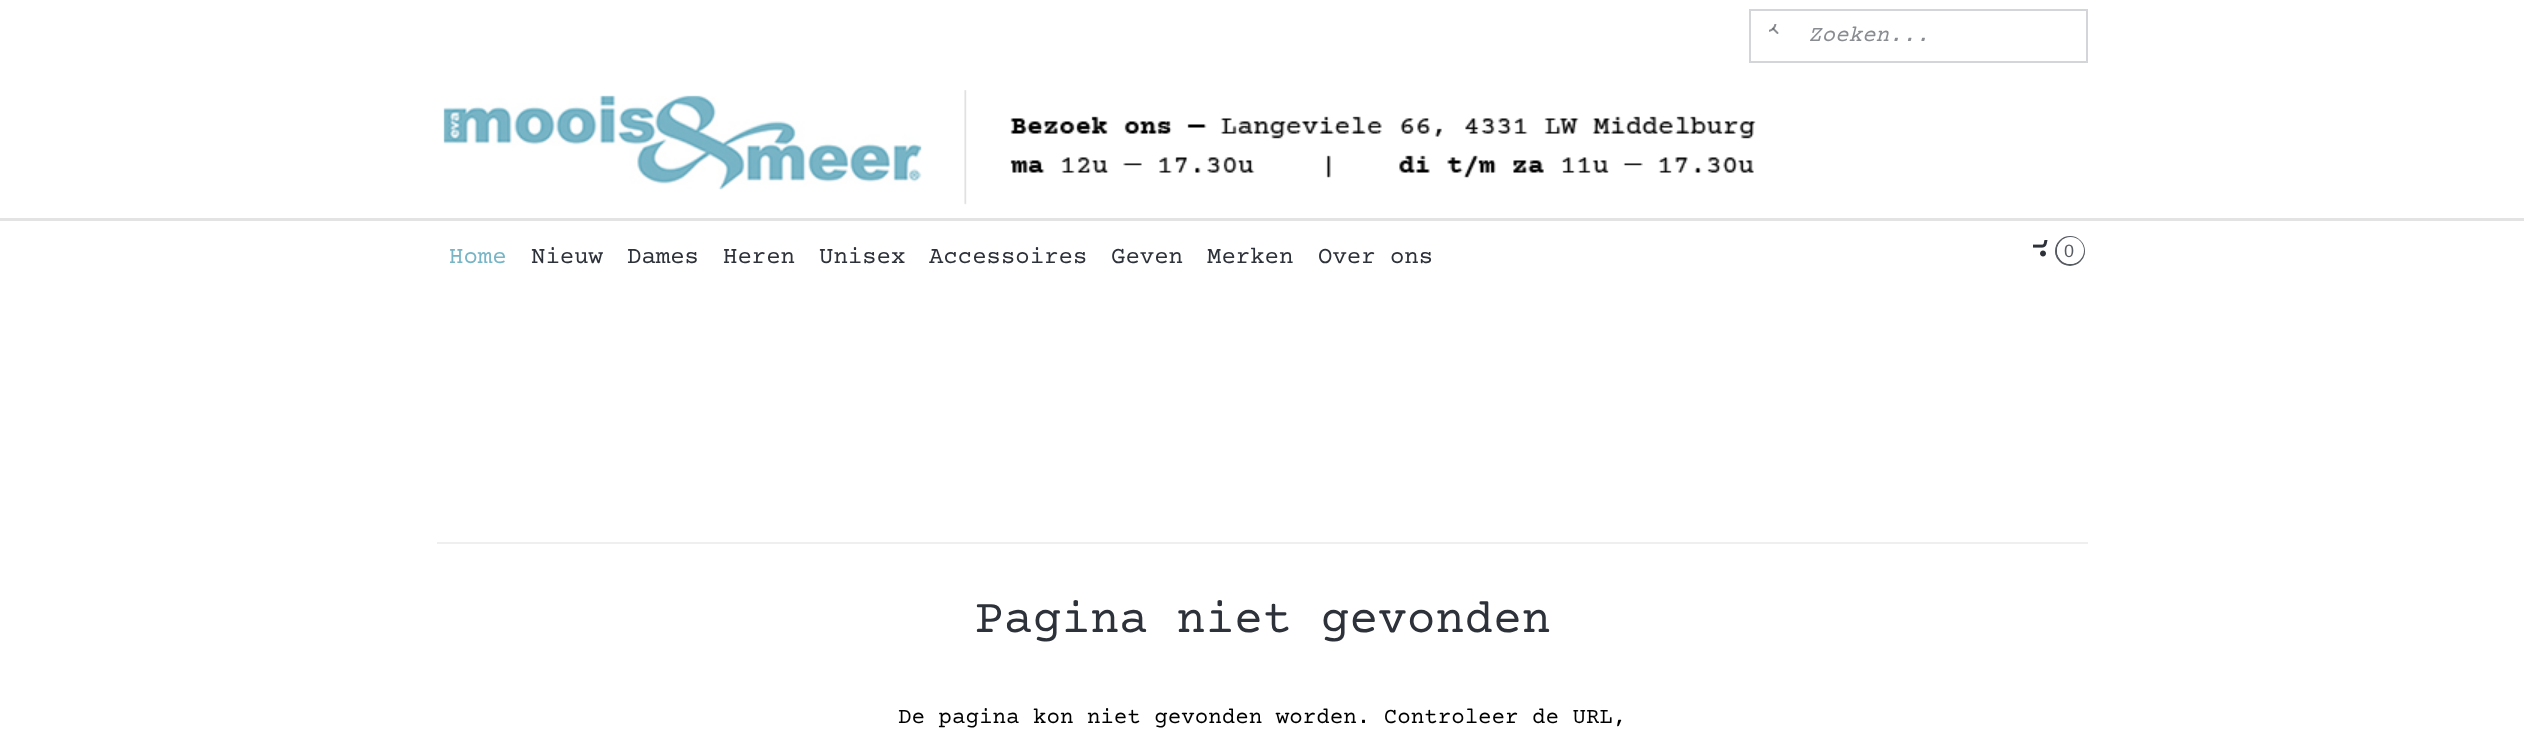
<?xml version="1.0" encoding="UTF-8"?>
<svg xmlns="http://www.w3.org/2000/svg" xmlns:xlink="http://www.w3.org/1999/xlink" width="2524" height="731">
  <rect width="100%" height="100%" fill="#ffffff" />
  <rect x="1750" y="10" width="337" height="52" fill="none" stroke="#d3d5d9" stroke-width="2" />
  <image x="1769" y="24" width="10" height="10" xlink:href="image1.png" />
  <image x="443" y="90" width="1313" height="115" xlink:href="image2.png" />
  <rect y="218" width="2524" height="3" fill="#e3e3e3" />
  <image x="2033" y="240" width="15" height="17" xlink:href="image3.png" />
  <circle cx="2070" cy="251" r="14" fill="none" stroke="#575b62" stroke-width="2" />
  <circle cx="2070.5" cy="250.5" r="13.5" fill="#ffffff" />
  <rect x="437" y="542" width="1651" height="2" fill="#efefef" />
  <text x="1808" y="41" style="font-family: Courier Prime; font-size: 22.5px; font-style: italic; fill: #898c91">Zoeken...</text>
  <text x="449" y="263" style="font-family: Courier Prime; font-size: 24px; fill: #77b5c6">Home</text>
  <text x="531" y="263" style="font-family: Courier Prime; font-size: 24px; fill: #2d3139">Nieuw</text>
  <text x="627" y="263" style="font-family: Courier Prime; font-size: 24px; fill: #2d3139">Dames</text>
  <text x="723" y="263" style="font-family: Courier Prime; font-size: 24px; fill: #2d3139">Heren</text>
  <text x="819" y="263" style="font-family: Courier Prime; font-size: 24px; fill: #2d3139">Unisex</text>
  <text x="929" y="263" style="font-family: Courier Prime; font-size: 24px; fill: #2d3139">Accessoires</text>
  <text x="1111" y="263" style="font-family: Courier Prime; font-size: 24px; fill: #2d3139">Geven</text>
  <text x="1207" y="263" style="font-family: Courier Prime; font-size: 24px; fill: #2d3139">Merken</text>
  <text x="1318" y="263" style="font-family: Courier Prime; font-size: 24px; fill: #2d3139">Over ons</text>
  <text x="2064" y="257" style="font-family: Liberation Sans; font-size: 18px; fill: #575b62">0</text>
  <text x="975" y="632" style="font-family: Courier Prime; font-size: 48px; fill: #2d3139">Pagina niet gevonden</text>
  <text x="898" y="723" style="font-family: Courier Prime; font-size: 22.5px; fill: #000000">De pagina kon niet gevonden worden. Controleer de URL,</text>
</svg>
